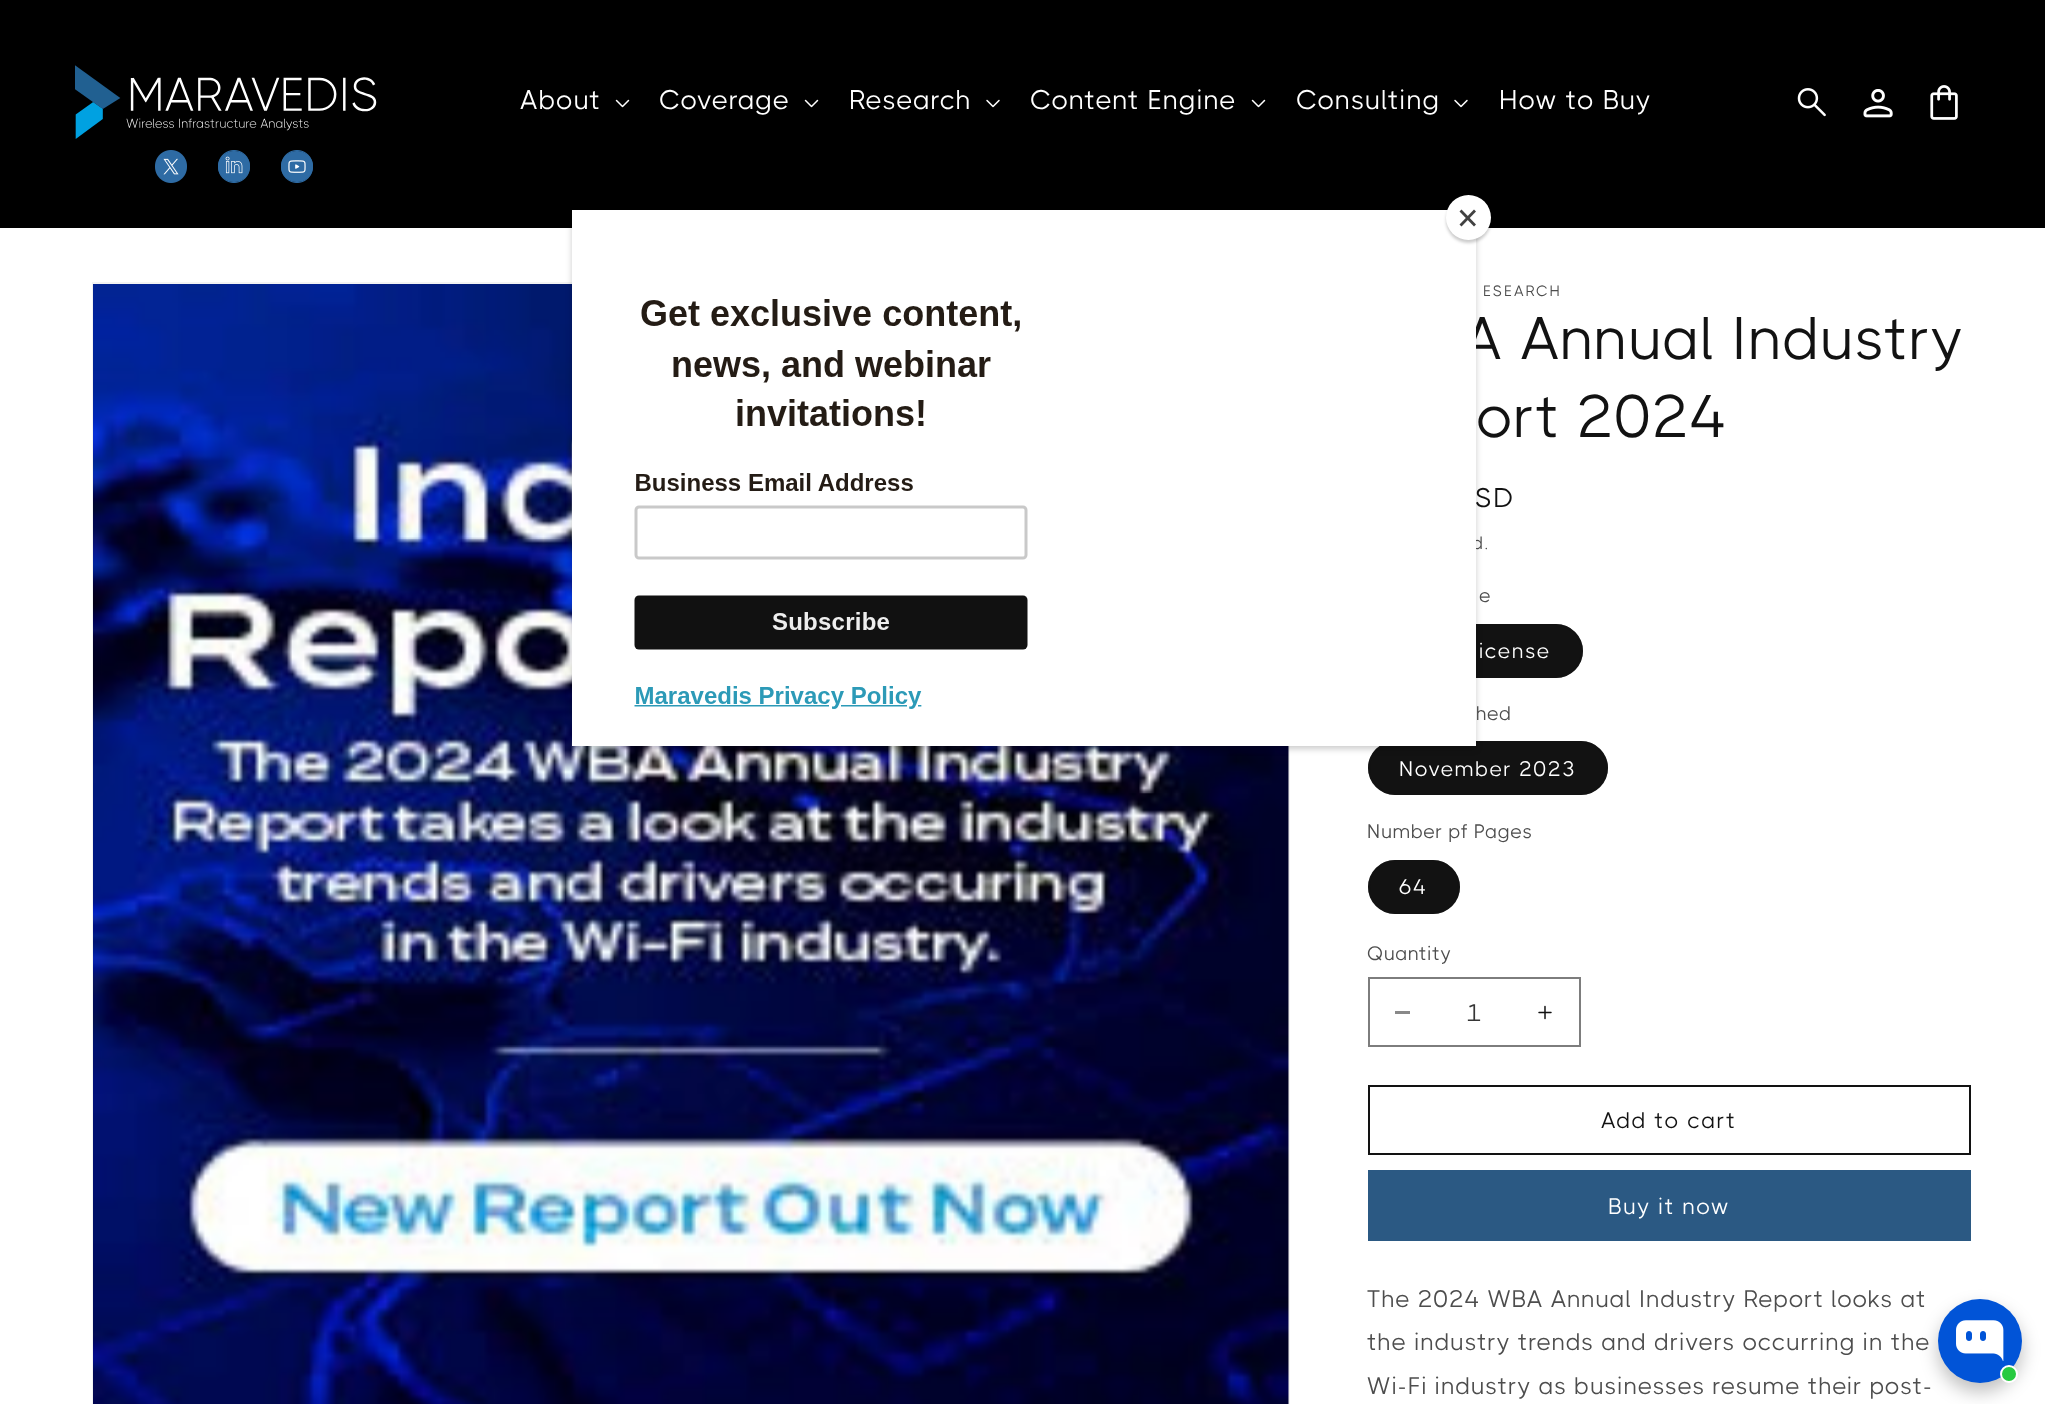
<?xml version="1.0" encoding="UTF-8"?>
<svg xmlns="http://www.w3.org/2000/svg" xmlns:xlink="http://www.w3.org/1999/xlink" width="2045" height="1404">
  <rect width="100%" height="100%" fill="#ffffff" />
  <rect width="2045" height="228" fill="#000000" />
  <image x="75" y="65" width="302" height="74" xlink:href="image1.png" />
  <image x="615" y="99" width="15" height="9" xlink:href="image2.png" />
  <image x="804" y="99" width="15" height="9" xlink:href="image2.png" />
  <image x="986" y="99" width="14" height="9" xlink:href="image3.png" />
  <image x="1251" y="99" width="15" height="9" xlink:href="image2.png" />
  <image x="1454" y="99" width="14" height="9" xlink:href="image3.png" />
  <image x="1797" y="88" width="29" height="29" xlink:href="image4.png" />
  <image x="1863" y="89" width="30" height="29" xlink:href="image5.png" />
  <image x="1930" y="85" width="28" height="35" xlink:href="image6.png" />
  <image x="155" y="150" width="32" height="33" xlink:href="image7.png" />
  <image x="218" y="150" width="32" height="33" xlink:href="image8.png" />
  <image x="281" y="150" width="32" height="33" xlink:href="image9.png" />
  <rect x="93" y="283" width="1196" height="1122" fill="none" stroke="#f3f3f3" stroke-width="2" />
  <image x="93" y="284" width="1196" height="1120" xlink:href="image11.png" />
  <rect x="1368" y="624" width="215" height="54" rx="27" fill="#121212" />
  <rect x="1369" y="625" width="213" height="52" rx="26" fill="none" stroke="#121212" stroke-opacity="0.55" stroke-width="2" />
  <rect x="1368" y="741" width="240" height="54" rx="27" fill="#121212" />
  <rect x="1369" y="742" width="238" height="52" rx="26" fill="none" stroke="#121212" stroke-opacity="0.55" stroke-width="2" />
  <rect x="572" y="213" width="904" height="536" fill="#000000" fill-opacity="0.2" filter="blur(3px)" />
  <rect x="1368" y="860" width="92" height="54" rx="27" fill="#121212" />
  <rect x="1369" y="861" width="90" height="52" rx="26" fill="none" stroke="#121212" stroke-opacity="0.55" stroke-width="2" />
  <rect x="1395" y="1011" width="15" height="3" fill="#898989" />
  <image x="1538" y="1005" width="14" height="15" xlink:href="image12.png" />
  <rect x="1369" y="978" width="211" height="68" fill="none" stroke="#7d7d7d" stroke-width="2" />
  <rect x="1369" y="1086" width="601" height="68" fill="none" stroke="#121212" stroke-width="2" />
  <rect x="1368" y="1170" width="603" height="71" fill="#2b5983" />
  <rect x="1938" y="1308" width="84" height="84" rx="42" fill="#000000" fill-opacity="0.25" filter="blur(9px)" />
  <circle cx="1980" cy="1341" r="42" fill="#0154d7" />
  <image x="1956" y="1320" width="48" height="41" xlink:href="image13.png" />
  <circle cx="2009" cy="1374" r="8" fill="#27ca40" stroke="#ffffff" stroke-width="2" />
  <text x="520" y="109" style="font-family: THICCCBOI; font-size: 27px; letter-spacing: 0.9px; fill: #ffffff">About</text>
  <text x="659" y="109" style="font-family: THICCCBOI; font-size: 27px; letter-spacing: 0.9px; fill: #ffffff">Coverage</text>
  <text x="849" y="109" style="font-family: THICCCBOI; font-size: 27px; letter-spacing: 0.9px; fill: #ffffff">Research</text>
  <text x="1030" y="109" style="font-family: THICCCBOI; font-size: 27px; letter-spacing: 0.9px; fill: #ffffff">Content Engine</text>
  <text x="1296" y="109" style="font-family: THICCCBOI; font-size: 27px; letter-spacing: 0.9px; fill: #ffffff">Consulting</text>
  <text x="1499" y="109" style="font-family: THICCCBOI; font-size: 27px; letter-spacing: 0.9px; fill: #ffffff">How to Buy</text>
  <text x="1483" y="296" style="font-family: THICCCBOI; font-size: 15px; letter-spacing: 2px; fill: #4d4d4d">ESEARCH</text>
  <text x="1463" y="359" style="font-family: THICCCBOI; font-size: 60px; letter-spacing: 0.9px; fill: #121212">A Annual Industry</text>
  <text x="1476" y="437" style="font-family: THICCCBOI; font-size: 60px; letter-spacing: 0.9px; fill: #121212">ort 2024</text>
  <text x="1475" y="507" style="font-family: THICCCBOI; font-size: 27px; letter-spacing: 2px; fill: #121212">SD</text>
  <text x="1472" y="549" style="font-family: THICCCBOI; font-size: 18px; letter-spacing: 1px; fill: #4d4d4d">d.</text>
  <image x="572" y="210" width="904" height="536" xlink:href="image10.png" />
  <rect x="1446" y="198" width="45" height="45" rx="22.5" fill="#000000" fill-opacity="0.2" filter="blur(1.5px)" />
  <circle cx="1468.5" cy="217.5" r="22.5" fill="#ffffff" />
  <path d="M 1474 209.5 l 2 2 l -14.5 15 l -2 -2 z" fill="#414141" />
  <path d="M 1459.5 211.5 l 2 -2 l 14.5 15 l -2 2 z" fill="#414141" />
  <text x="1479" y="602" style="font-family: THICCCBOI; font-size: 19.5px; letter-spacing: 0.6px; fill: #4d4d4d">e</text>
  <text x="1479" y="658" style="font-family: THICCCBOI; font-size: 21px; letter-spacing: 1.5px; fill: #ffffff">icense</text>
  <text x="1476" y="720" style="font-family: THICCCBOI; font-size: 19.5px; letter-spacing: 0.6px; fill: #4d4d4d">hed</text>
  <text x="1399" y="776" style="font-family: THICCCBOI; font-size: 21px; letter-spacing: 1.5px; fill: #ffffff">November 2023</text>
  <text x="1367" y="838" style="font-family: THICCCBOI; font-size: 19.5px; letter-spacing: 0.6px; fill: #4d4d4d">Number pf Pages</text>
  <text x="1399" y="894" style="font-family: THICCCBOI; font-size: 21px; letter-spacing: 1.5px; fill: #ffffff">64</text>
  <text x="1367" y="960" style="font-family: THICCCBOI; font-size: 19.5px; letter-spacing: 0.6px; fill: #4d4d4d">Quantity</text>
  <text x="1467" y="1021" style="font-family: THICCCBOI; font-size: 24px; fill: #363636">1</text>
  <text x="1601" y="1128" style="font-family: THICCCBOI; font-size: 22.5px; letter-spacing: 1.5px; fill: #121212">Add to cart</text>
  <text x="1608" y="1214" style="font-family: THICCCBOI; font-size: 22.5px; letter-spacing: 1.5px; fill: #ffffff">Buy it now</text>
  <text x="1367" y="1307" style="font-family: THICCCBOI; font-size: 24px; letter-spacing: 0.9px; fill: #4d4d4d">The 2024 WBA Annual Industry Report looks at</text>
  <text x="1367" y="1350" style="font-family: THICCCBOI; font-size: 24px; letter-spacing: 0.9px; fill: #4d4d4d">the industry trends and drivers occurring in the</text>
  <text x="1367" y="1394" style="font-family: THICCCBOI; font-size: 24px; letter-spacing: 0.9px; fill: #4d4d4d">Wi-Fi industry as businesses resume their post-</text>
</svg>
